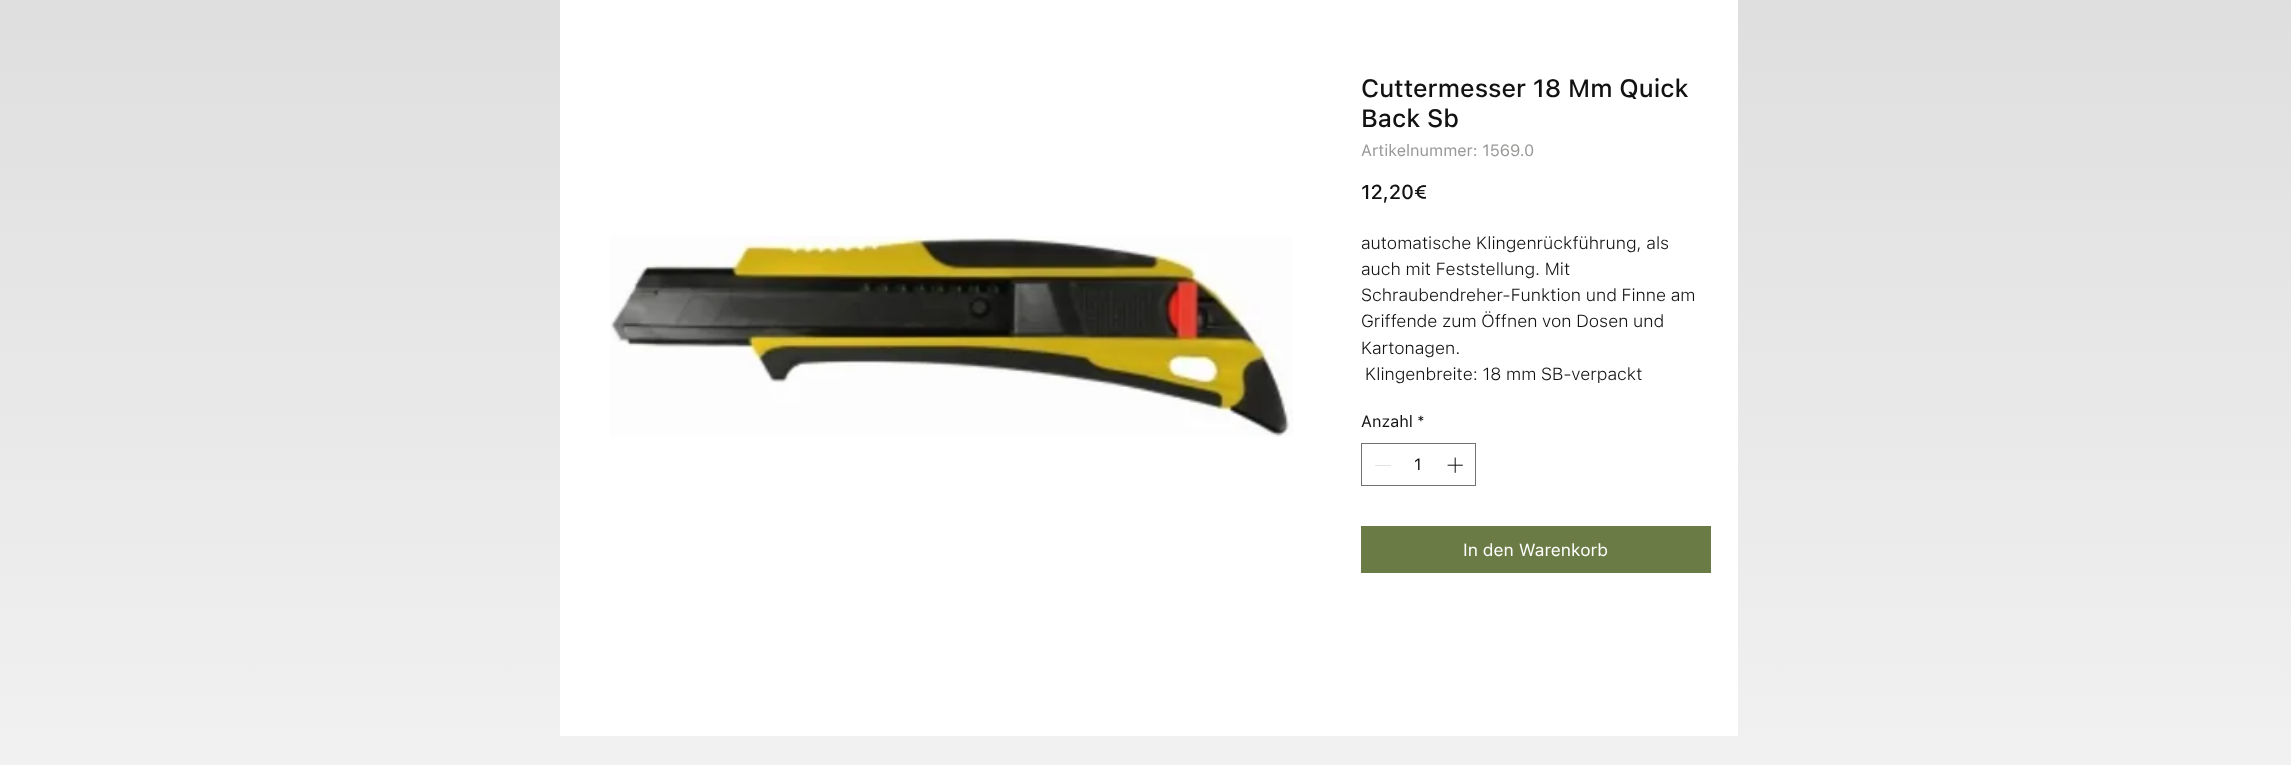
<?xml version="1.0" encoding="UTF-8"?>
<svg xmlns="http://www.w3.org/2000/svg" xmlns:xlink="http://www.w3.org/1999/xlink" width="2291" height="765">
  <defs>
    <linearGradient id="g1" gradientUnits="userSpaceOnUse" x1="1146" y1="-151" x2="1146" y2="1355"><stop offset="0" stop-color="#dbdbdb" /><stop offset="1" stop-color="#ffffff" /></linearGradient>
  </defs>
  <rect width="100%" height="100%" fill="#ffffff" />
  <rect width="2291" height="765" fill="url(#g1)" />
  <rect x="560" width="1178" height="736" fill="#ffffff" />
  <image x="610" y="236" width="683" height="201" xlink:href="image1.png" />
  <rect x="1361.5" y="443.5" width="114" height="42" fill="none" stroke="#717171" />
  <rect x="1375" y="465" width="16" height="1" fill="#e3e3e3" />
  <image x="1447" y="457" width="16" height="16" xlink:href="image2.png" />
  <rect x="1361" y="526" width="350" height="47" fill="#6b7b45" />
  <text x="1361" y="97" style="font-family: SF Pro Text; font-size: 25px; font-weight: 500; fill: #121212">Cuttermesser 18 Mm Quick</text>
  <text x="1361" y="127" style="font-family: SF Pro Text; font-size: 25px; font-weight: 500; fill: #121212">Back Sb</text>
  <text x="1361" y="156" style="font-family: SF Pro Text; font-size: 16.25px; fill: #999997">Artikelnummer: 1569.0</text>
  <text x="1361" y="199" style="font-family: SF Pro Text; font-size: 20px; font-weight: 500; fill: #121212">12,20€</text>
  <text x="1361" y="249" style="font-family: SF Pro Text; font-size: 17.5px; font-weight: 300; fill: #121212">automatische Klingenrückführung, als</text>
  <text x="1361" y="275" style="font-family: SF Pro Text; font-size: 17.5px; font-weight: 300; fill: #121212">auch mit Feststellung. Mit</text>
  <text x="1361" y="301" style="font-family: SF Pro Text; font-size: 17.5px; font-weight: 300; fill: #121212">Schraubendreher-Funktion und Finne am</text>
  <text x="1361" y="327" style="font-family: SF Pro Text; font-size: 17.5px; font-weight: 300; fill: #121212">Griffende zum Öffnen von Dosen und</text>
  <text x="1361" y="354" style="font-family: SF Pro Text; font-size: 17.5px; font-weight: 300; fill: #121212">Kartonagen.</text>
  <text x="1365" y="380" style="font-family: SF Pro Text; font-size: 17.5px; font-weight: 300; fill: #121212">Klingenbreite: 18 mm SB-verpackt</text>
  <text x="1361" y="427" style="font-family: SF Pro Text; font-size: 16.25px; fill: #121212">Anzahl</text>
  <text x="1417" y="427" style="font-family: SF Pro Text; font-size: 16.25px; fill: #121212">*</text>
  <text x="1414" y="470" style="font-family: SF Pro Text; font-size: 16.25px; fill: #121212">1</text>
  <text x="1463" y="556" style="font-family: SF Pro Text; font-size: 17.5px; fill: #ffffff">In den Warenkorb</text>
</svg>
